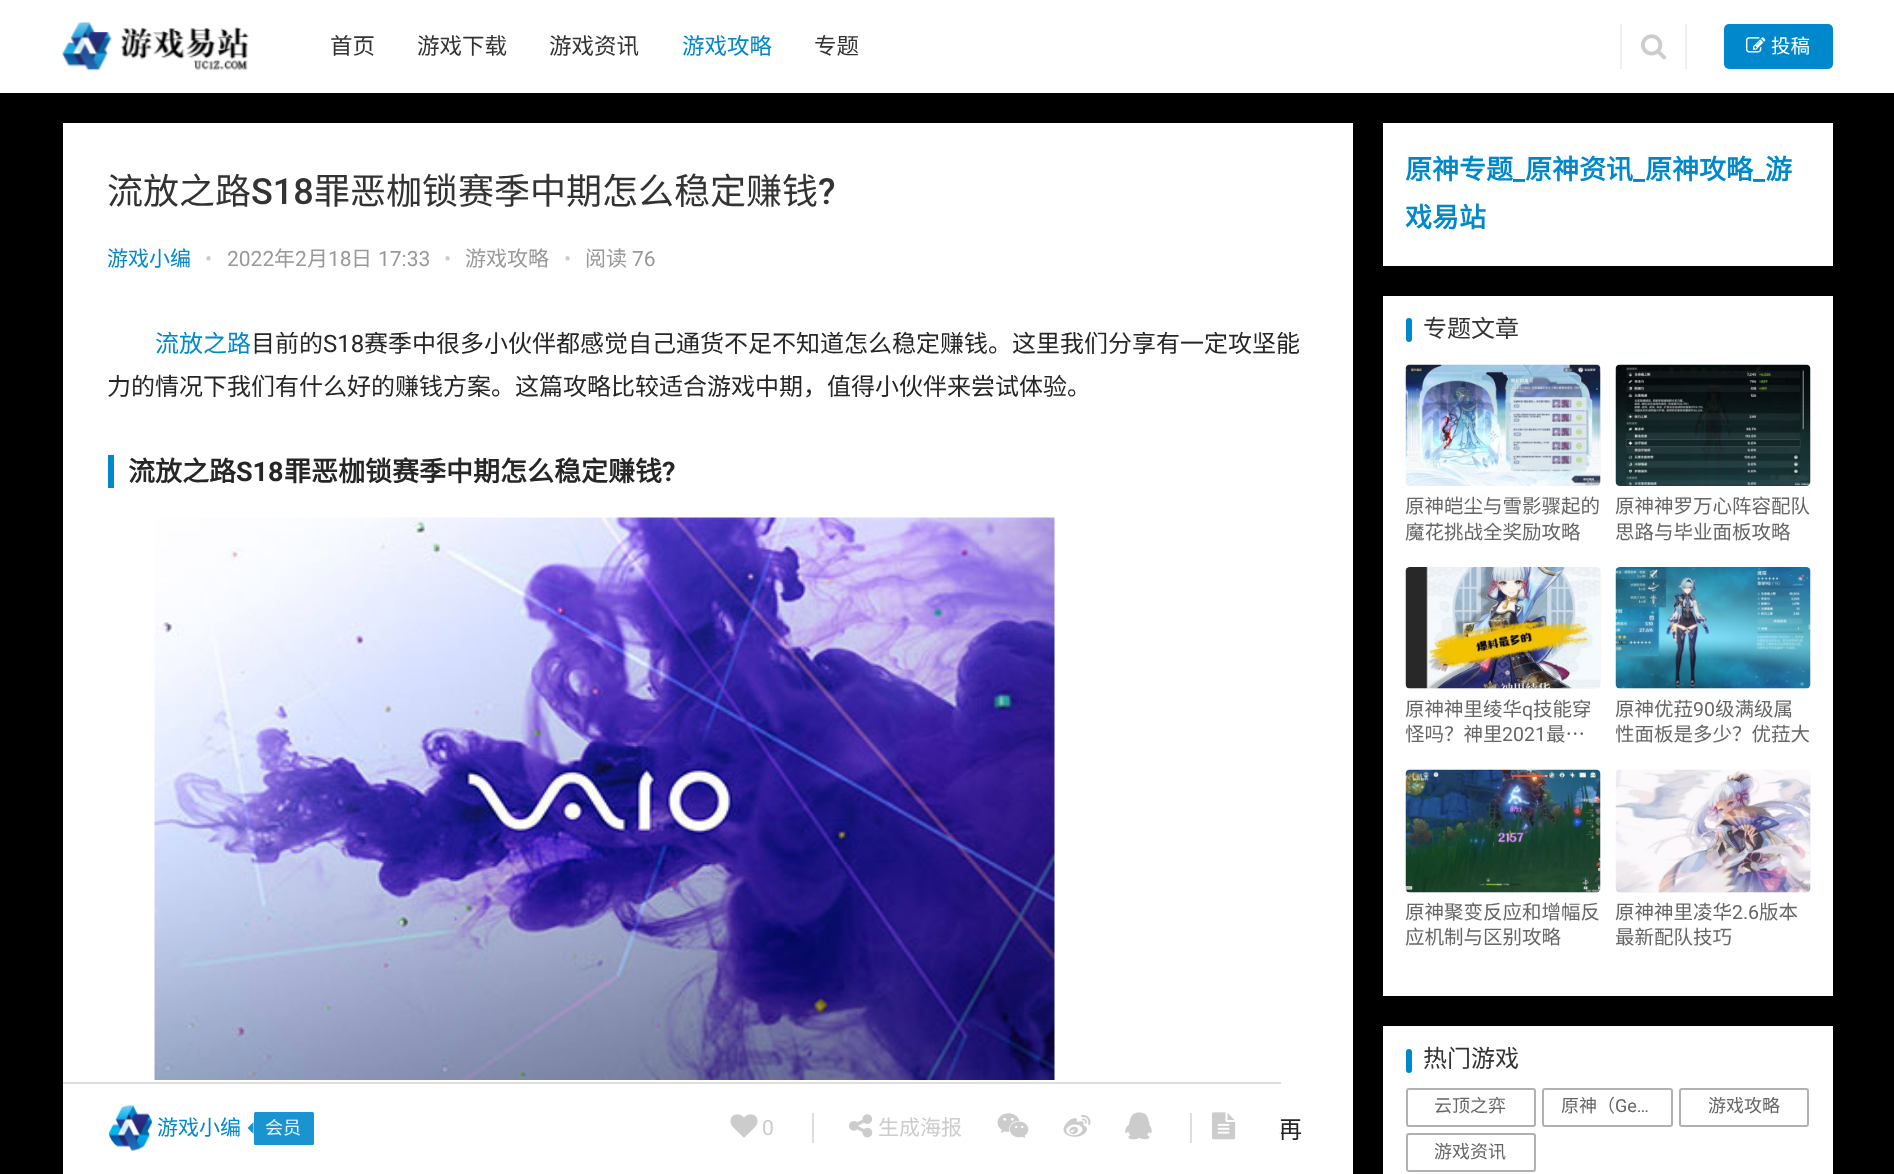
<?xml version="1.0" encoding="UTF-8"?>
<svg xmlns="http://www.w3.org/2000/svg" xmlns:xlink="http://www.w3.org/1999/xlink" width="1894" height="1174">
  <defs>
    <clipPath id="clip1"><rect x="1406" y="696" width="195" height="51" /></clipPath>
    <clipPath id="clip2"><rect x="1616" y="696" width="195" height="51" /></clipPath>
    <clipPath id="clip3"><rect x="1616" y="900" width="195" height="51" /></clipPath>
  </defs>
  <rect width="100%" height="100%" fill="#000000" />
  <rect width="1894" height="93" fill="#ffffff" />
  <image x="62" y="22" width="187" height="49" xlink:href="image1.png" />
  <rect x="1685" y="24" width="2" height="45" fill="#efefef" />
  <rect x="1620" y="24" width="2" height="45" fill="#efefef" />
  <image x="1641" y="34" width="25" height="26" xlink:href="image2.png" />
  <rect x="1724" y="24" width="109" height="45" rx="5" fill="#0088cc" />
  <image x="1746" y="37" width="20" height="16" xlink:href="image3.png" />
  <rect x="63" y="123" width="1290" height="1051" fill="#ffffff" />
  <rect x="108" y="455" width="6" height="33" fill="#0088cc" />
  <image x="154" y="517" width="901" height="563" xlink:href="image4.png" />
  <rect x="63" y="1082" width="1218" height="2" fill="#dddddd" />
  <image x="108" y="1105" width="45" height="46" xlink:href="image5.png" />
  <rect x="254" y="1112" width="60" height="33" rx="1.5" fill="#0088cc" fill-opacity="0.9" />
  <path d="M 253.5 1122 v 12 l -6 -6 z" fill="#0088cc" fill-opacity="0.9" />
  <image x="730" y="1114" width="28" height="24" xlink:href="image6.png" />
  <rect x="812" y="1113" width="2" height="30" fill="#dddddd" />
  <image x="849" y="1114" width="24" height="24" xlink:href="image7.png" />
  <image x="997" y="1113" width="32" height="25" xlink:href="image8.png" />
  <image x="1063" y="1115" width="28" height="22" xlink:href="image9.png" />
  <image x="1125" y="1112" width="27" height="28" xlink:href="image10.png" />
  <rect x="1190" y="1113" width="2" height="30" fill="#dddddd" />
  <image x="1212" y="1112" width="24" height="28" xlink:href="image11.png" />
  <rect x="1383" y="123" width="450" height="143" fill="#ffffff" />
  <rect x="1383" y="296" width="450" height="700" fill="#ffffff" />
  <rect x="1406" y="318" width="6" height="24" rx="3" fill="#0088cc" />
  <rect x="1406" y="365" width="195" height="121" rx="5" fill="#f8f9fa" />
  <image x="1405" y="364" width="196" height="122" xlink:href="image12.png" />
  <rect x="1616" y="365" width="195" height="121" rx="5" fill="#f8f9fa" />
  <image x="1615" y="364" width="196" height="122" xlink:href="image13.png" />
  <rect x="1406" y="567" width="195" height="122" rx="5" fill="#f8f9fa" />
  <image x="1405" y="567" width="196" height="122" xlink:href="image14.png" />
  <rect x="1616" y="567" width="195" height="122" rx="5" fill="#f8f9fa" />
  <image x="1615" y="567" width="196" height="122" xlink:href="image15.png" />
  <rect x="1406" y="770" width="195" height="123" rx="5" fill="#f8f9fa" />
  <image x="1405" y="769" width="196" height="124" xlink:href="image16.png" />
  <rect x="1616" y="770" width="195" height="123" rx="5" fill="#f8f9fa" />
  <image x="1615" y="769" width="196" height="124" xlink:href="image17.png" />
  <rect x="1383" y="1026" width="450" height="148" fill="#ffffff" />
  <rect x="1406" y="1049" width="6" height="24" rx="3" fill="#0088cc" />
  <rect x="1407" y="1089" width="128" height="37" rx="2" fill="none" stroke="#b1b1b1" stroke-width="2" />
  <rect x="1543" y="1089" width="129" height="37" rx="2" fill="none" stroke="#b1b1b1" stroke-width="2" />
  <rect x="1680" y="1089" width="128" height="37" rx="2" fill="none" stroke="#b1b1b1" stroke-width="2" />
  <rect x="1407" y="1134" width="128" height="37" rx="2" fill="none" stroke="#b1b1b1" stroke-width="2" />
  <text x="330" y="54" style="font-family: Noto Sans CJK SC; font-size: 22.5px; fill: #333333">首页</text>
  <text x="417" y="54" style="font-family: Noto Sans CJK SC; font-size: 22.5px; fill: #333333">游戏下载</text>
  <text x="549" y="54" style="font-family: Noto Sans CJK SC; font-size: 22.5px; fill: #333333">游戏资讯</text>
  <text x="682" y="54" style="font-family: Noto Sans CJK SC; font-size: 22.5px; fill: #0088cc">游戏攻略</text>
  <text x="814" y="54" style="font-family: Noto Sans CJK SC; font-size: 22.5px; fill: #333333">专题</text>
  <text x="1771" y="53" style="font-family: Noto Sans CJK SC; font-size: 19.5px; fill: #ffffff">投稿</text>
  <text x="107" y="204" style="font-family: Noto Sans CJK SC; font-size: 36px; fill: #333333">流放之路</text>
  <text x="251" y="204" style="font-family: Roboto; font-size: 36px; font-weight: 500; fill: #333333">S18</text>
  <text x="314" y="204" style="font-family: Noto Sans CJK SC; font-size: 36px; fill: #333333">罪恶枷锁赛季中期怎么稳定赚钱</text>
  <text x="818" y="204" style="font-family: Roboto; font-size: 36px; font-weight: 500; fill: #333333">?</text>
  <text x="107" y="266" style="font-family: Noto Sans CJK SC; font-size: 21px; fill: #0088cc">游戏小编</text>
  <text x="205" y="266" style="font-family: Roboto; font-size: 21px; fill: #cccccc">•</text>
  <text x="227" y="266" style="font-family: Roboto; font-size: 21px; fill: #999999">2022</text>
  <text x="274" y="266" style="font-family: Noto Sans CJK SC; font-size: 21px; fill: #999999">年</text>
  <text x="295" y="266" style="font-family: Roboto; font-size: 21px; fill: #999999">2</text>
  <text x="307" y="266" style="font-family: Noto Sans CJK SC; font-size: 21px; fill: #999999">月</text>
  <text x="328" y="266" style="font-family: Roboto; font-size: 21px; fill: #999999">18</text>
  <text x="351" y="266" style="font-family: Noto Sans CJK SC; font-size: 21px; fill: #999999">日</text>
  <text x="378" y="266" style="font-family: Roboto; font-size: 21px; fill: #999999">17:33</text>
  <text x="444" y="266" style="font-family: Roboto; font-size: 21px; fill: #cccccc">•</text>
  <text x="465" y="266" style="font-family: Noto Sans CJK SC; font-size: 21px; fill: #999999">游戏攻略</text>
  <text x="564" y="266" style="font-family: Roboto; font-size: 21px; fill: #cccccc">•</text>
  <text x="585" y="266" style="font-family: Noto Sans CJK SC; font-size: 21px; fill: #999999">阅读</text>
  <text x="632" y="266" style="font-family: Roboto; font-size: 21px; fill: #999999">76</text>
  <text x="155" y="352" style="font-family: Noto Sans CJK SC; font-size: 24px; fill: #0088cc">流放之路</text>
  <text x="251" y="352" style="font-family: Noto Sans CJK SC; font-size: 24px; fill: #262626">目前的</text>
  <text x="323" y="352" style="font-family: Roboto; font-size: 24px; fill: #262626">S18</text>
  <text x="364" y="352" style="font-family: Noto Sans CJK SC; font-size: 24px; fill: #262626">赛季中很多小伙伴都感觉自己通货不足不知道怎么稳定赚钱。这里我们分享有一定攻坚能</text>
  <text x="107" y="395" style="font-family: Noto Sans CJK SC; font-size: 24px; fill: #262626">力的情况下我们有什么好的赚钱方案。这篇攻略比较适合游戏中期，值得小伙伴来尝试体验。</text>
  <text x="128" y="481" style="font-family: Noto Sans CJK SC; font-size: 27px; font-weight: bold; fill: #262626">流放之路</text>
  <text x="236" y="481" style="font-family: Roboto; font-size: 27px; font-weight: bold; fill: #262626">S18</text>
  <text x="284" y="481" style="font-family: Noto Sans CJK SC; font-size: 27px; font-weight: bold; fill: #262626">罪恶枷锁赛季中期怎么稳定赚钱</text>
  <text x="662" y="481" style="font-family: Roboto; font-size: 27px; font-weight: bold; fill: #262626">?</text>
  <text x="1278" y="1138" style="font-family: Noto Sans CJK SC; font-size: 24px; fill: #262626">再</text>
  <rect x="1278" y="1119" width="3" height="16" fill="#ffffff" fill-opacity="0.92" />
  <text x="157" y="1135" style="font-family: Noto Sans CJK SC; font-size: 21px; fill: #0088cc">游戏小编</text>
  <text x="265" y="1134" style="font-family: Noto Sans CJK SC; font-size: 18px; fill: #e8f4fa">会员</text>
  <text x="762" y="1135" style="font-family: Roboto; font-size: 21px; fill: #cccccc">0</text>
  <text x="878" y="1135" style="font-family: Noto Sans CJK SC; font-size: 21px; fill: #cccccc">生成海报</text>
  <text x="1405" y="179" style="font-family: Noto Sans CJK SC; font-size: 27px; font-weight: bold; fill: #0088cc">原神专题</text>
  <text x="1513" y="179" style="font-family: Roboto; font-size: 27px; font-weight: bold; fill: #0088cc">_</text>
  <text x="1525" y="179" style="font-family: Noto Sans CJK SC; font-size: 27px; font-weight: bold; fill: #0088cc">原神资讯</text>
  <text x="1633" y="179" style="font-family: Roboto; font-size: 27px; font-weight: bold; fill: #0088cc">_</text>
  <text x="1645" y="179" style="font-family: Noto Sans CJK SC; font-size: 27px; font-weight: bold; fill: #0088cc">原神攻略</text>
  <text x="1753" y="179" style="font-family: Roboto; font-size: 27px; font-weight: bold; fill: #0088cc">_</text>
  <text x="1765" y="179" style="font-family: Noto Sans CJK SC; font-size: 27px; font-weight: bold; fill: #0088cc">游</text>
  <text x="1405" y="227" style="font-family: Noto Sans CJK SC; font-size: 27px; font-weight: bold; fill: #0088cc">戏易站</text>
  <text x="1423" y="337" style="font-family: Noto Sans CJK SC; font-size: 24px; fill: #333333">专题文章</text>
  <text x="1405" y="513" style="font-family: Noto Sans CJK SC; font-size: 19.5px; fill: #666666">原神皑尘与雪影骤起的</text>
  <text x="1405" y="539" style="font-family: Noto Sans CJK SC; font-size: 19.5px; fill: #666666">魔花挑战全奖励攻略</text>
  <text x="1615" y="513" style="font-family: Noto Sans CJK SC; font-size: 19.5px; fill: #666666">原神神罗万心阵容配队</text>
  <text x="1615" y="539" style="font-family: Noto Sans CJK SC; font-size: 19.5px; fill: #666666">思路与毕业面板攻略</text>
  <text x="1405" y="716" style="font-family: Noto Sans CJK SC; font-size: 19.5px; fill: #666666">原神神里绫华</text>
  <text x="1522" y="716" style="font-family: Roboto; font-size: 19.5px; fill: #666666">q</text>
  <text x="1533" y="716" style="font-family: Noto Sans CJK SC; font-size: 19.5px; fill: #666666">技能穿</text>
  <g clip-path="url(#clip1)">
    <text x="1405" y="741" style="font-family: Noto Sans CJK SC; font-size: 19.5px; fill: #666666">怪吗？神里</text>
  </g>
  <text x="1502" y="741" style="font-family: Roboto; font-size: 19.5px; fill: #666666">2021</text>
  <text x="1546" y="741" style="font-family: Noto Sans CJK SC; font-size: 19.5px; fill: #666666">最…</text>
  <text x="1615" y="716" style="font-family: Noto Sans CJK SC; font-size: 19.5px; fill: #666666">原神优菈</text>
  <text x="1693" y="716" style="font-family: Roboto; font-size: 19.5px; fill: #666666">90</text>
  <text x="1715" y="716" style="font-family: Noto Sans CJK SC; font-size: 19.5px; fill: #666666">级满级属</text>
  <g clip-path="url(#clip2)">
    <text x="1615" y="741" style="font-family: Noto Sans CJK SC; font-size: 19.5px; fill: #666666">性面板是多少？优菈大</text>
  </g>
  <text x="1405" y="919" style="font-family: Noto Sans CJK SC; font-size: 19.5px; fill: #666666">原神聚变反应和增幅反</text>
  <text x="1405" y="944" style="font-family: Noto Sans CJK SC; font-size: 19.5px; fill: #666666">应机制与区别攻略</text>
  <text x="1615" y="919" style="font-family: Noto Sans CJK SC; font-size: 19.5px; fill: #666666">原神神里凌华</text>
  <text x="1732" y="919" style="font-family: Roboto; font-size: 19.5px; fill: #666666">2.6</text>
  <text x="1759" y="919" style="font-family: Noto Sans CJK SC; font-size: 19.5px; fill: #666666">版本</text>
  <g clip-path="url(#clip3)">
    <text x="1615" y="944" style="font-family: Noto Sans CJK SC; font-size: 19.5px; fill: #666666">最新配队技巧</text>
  </g>
  <text x="1423" y="1067" style="font-family: Noto Sans CJK SC; font-size: 24px; fill: #333333">热门游戏</text>
  <text x="1434" y="1112" style="font-family: Noto Sans CJK SC; font-size: 18px; fill: #666666">云顶之弈</text>
  <text x="1561" y="1112" style="font-family: Noto Sans CJK SC; font-size: 18px; fill: #666666">原神（</text>
  <text x="1615" y="1112" style="font-family: Roboto; font-size: 18px; fill: #666666">Ge…</text>
  <text x="1708" y="1112" style="font-family: Noto Sans CJK SC; font-size: 18px; fill: #666666">游戏攻略</text>
  <text x="1434" y="1158" style="font-family: Noto Sans CJK SC; font-size: 18px; fill: #666666">游戏资讯</text>
</svg>
